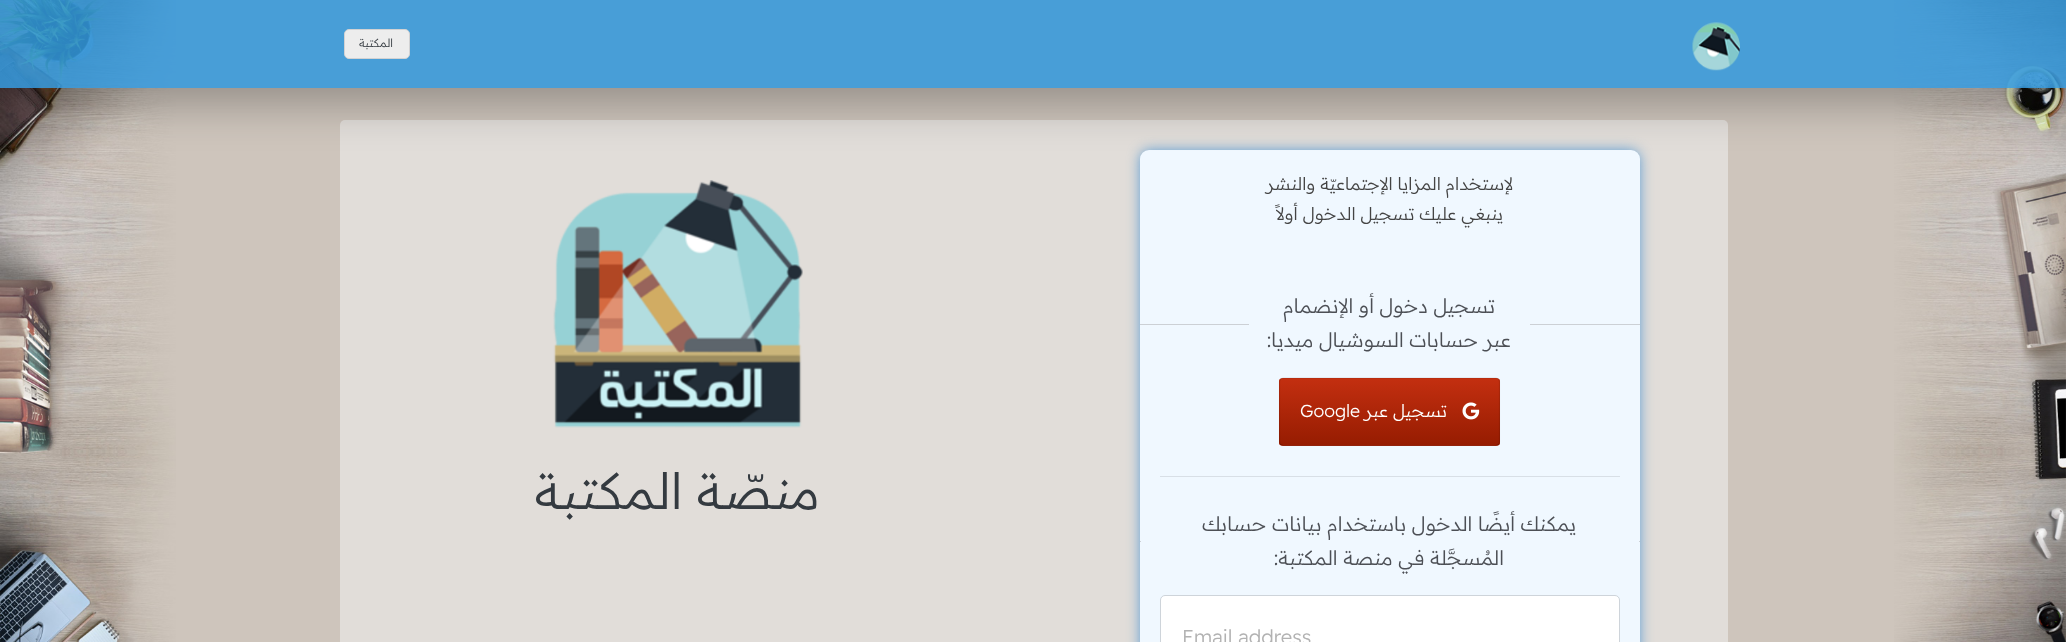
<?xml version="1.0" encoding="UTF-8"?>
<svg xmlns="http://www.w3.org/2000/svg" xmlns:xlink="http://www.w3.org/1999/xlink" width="2066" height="642">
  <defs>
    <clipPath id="clip1"><path d="M 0 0 h 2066 v 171 h -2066 z m 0 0 h 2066 v 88 h -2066 z" clip-rule="evenodd" /></clipPath>
    <clipPath id="clip2"><rect x="1279" y="378" width="221" height="68" rx="4" /></clipPath>
    <linearGradient id="g1" gradientUnits="userSpaceOnUse" x1="1389" y1="379" x2="1389" y2="445"><stop offset="0" stop-color="#c32f10" /><stop offset="1" stop-color="#961c01" /></linearGradient>
  </defs>
  <rect width="100%" height="100%" fill="#cec5bc" />
  <image x="1894" y="0" width="172" height="642" xlink:href="image1.png" />
  <image x="0" y="0" width="176" height="642" xlink:href="image3.png" />
  <rect x="340" y="120" width="1388" height="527" rx="5" fill="#e1ddd9" />
  <rect x="1141" y="151" width="498" height="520" rx="8" fill="#237fce" fill-opacity="0.78" filter="blur(7px)" />
  <rect x="1140" y="150" width="500" height="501" rx="9" fill="#f0f8ff" />
  <g clip-path="url(#clip1)">
    <rect x="-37" y="-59" width="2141" height="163" fill="#000000" fill-opacity="0.28" filter="blur(22px)" />
  </g>
  <rect width="2066" height="88" fill="#3498db" fill-opacity="0.87" />
  <image x="1692" y="22" width="48" height="49" xlink:href="image2.png" />
  <rect x="344.5" y="29.5" width="65" height="29" rx="4.5" fill="#ededed" stroke="#d2d2d3" />
  <rect x="1530" y="324" width="110" height="1" fill="#ccd0d5" />
  <rect x="1140" y="324" width="109" height="1" fill="#ccd0d5" />
  <rect x="1279" y="378" width="221" height="68" rx="4" fill="#c32f10" />
  <g clip-path="url(#clip2)">
    <rect x="1279" y="379" width="221" height="66" fill="url(#g1)" />
  </g>
  <path d="M 1498.5 444.5 l -2.5 1 h -213 l -2.5 -1" fill="none" stroke="#000000" stroke-opacity="0.25" stroke-width="1.2" />
  <path d="M 1280.5 444.5 l -1 -2.5 v -60.5 l 1 -2.5 l 2.5 -1 h 213 l 2.5 1 l 1 2.5 v 60.5 l -1 2.5" fill="none" stroke="#000000" stroke-opacity="0.1" stroke-width="1.2" />
  <image x="1462" y="402" width="18" height="18" xlink:href="image4.png" />
  <rect x="1160" y="476" width="460" height="1" fill="#d8dfe6" />
  <rect x="1639" y="541" width="1" height="1" fill="#ccd0d5" />
  <rect x="1140" y="541" width="1" height="1" fill="#ccd0d5" />
  <rect x="1161" y="596" width="458" height="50" rx="4" fill="#ffffff" />
  <rect x="1160.5" y="595.5" width="459" height="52" rx="4.5" fill="none" stroke="#ced4da" />
  <image x="553" y="180" width="250" height="248" xlink:href="image5.png" />
  <text x="393" y="47" style="font-family: Readex Pro; font-size: 11.5px; font-weight: 300; direction: rtl; fill: #343a40">المكتبة</text>
  <text x="1513" y="190" style="font-family: Readex Pro; font-size: 17.5px; font-weight: 300; direction: rtl; fill: #444444">لإستخدام المزايا الإجتماعيّة والنشر</text>
  <text x="1503" y="220" style="font-family: Readex Pro; font-size: 17.5px; font-weight: 300; direction: rtl; fill: #444444">ينبغي عليك تسجيل الدخول أولاً</text>
  <text x="1495" y="313" style="font-family: Readex Pro; font-size: 20px; font-weight: 300; direction: rtl; fill: #4c4f55">تسجيل دخول أو الإنضمام</text>
  <text x="1511" y="347" style="font-family: Readex Pro; font-size: 20px; font-weight: 300; direction: rtl; fill: #4c4f55">عبر حسابات السوشيال ميديا:</text>
  <text x="1447" y="417" style="font-family: Readex Pro; font-size: 17.5px; font-weight: 300; direction: rtl; fill: #ffffff">تسجيل عبر</text>
  <text x="1300" y="417" style="font-family: Readex Pro; font-size: 17.5px; font-weight: 300; fill: #ffffff">Google</text>
  <text x="1576" y="531" style="font-family: Readex Pro; font-size: 20px; font-weight: 300; direction: rtl; fill: #4c4f55">يمكنك أيضًا الدخول باستخدام بيانات حسابك</text>
  <text x="1504" y="565" style="font-family: Readex Pro; font-size: 20px; font-weight: 300; direction: rtl; fill: #4c4f55">المُسجَّلة في منصة المكتبة:</text>
  <text x="1182" y="644" style="font-family: Readex Pro; font-size: 20px; font-weight: 300; fill: #b2b2b2">Email address</text>
  <text x="820" y="509" style="font-family: Readex Pro; font-size: 50px; font-weight: 300; direction: rtl; fill: #343a40">منصّة المكتبة</text>
</svg>
